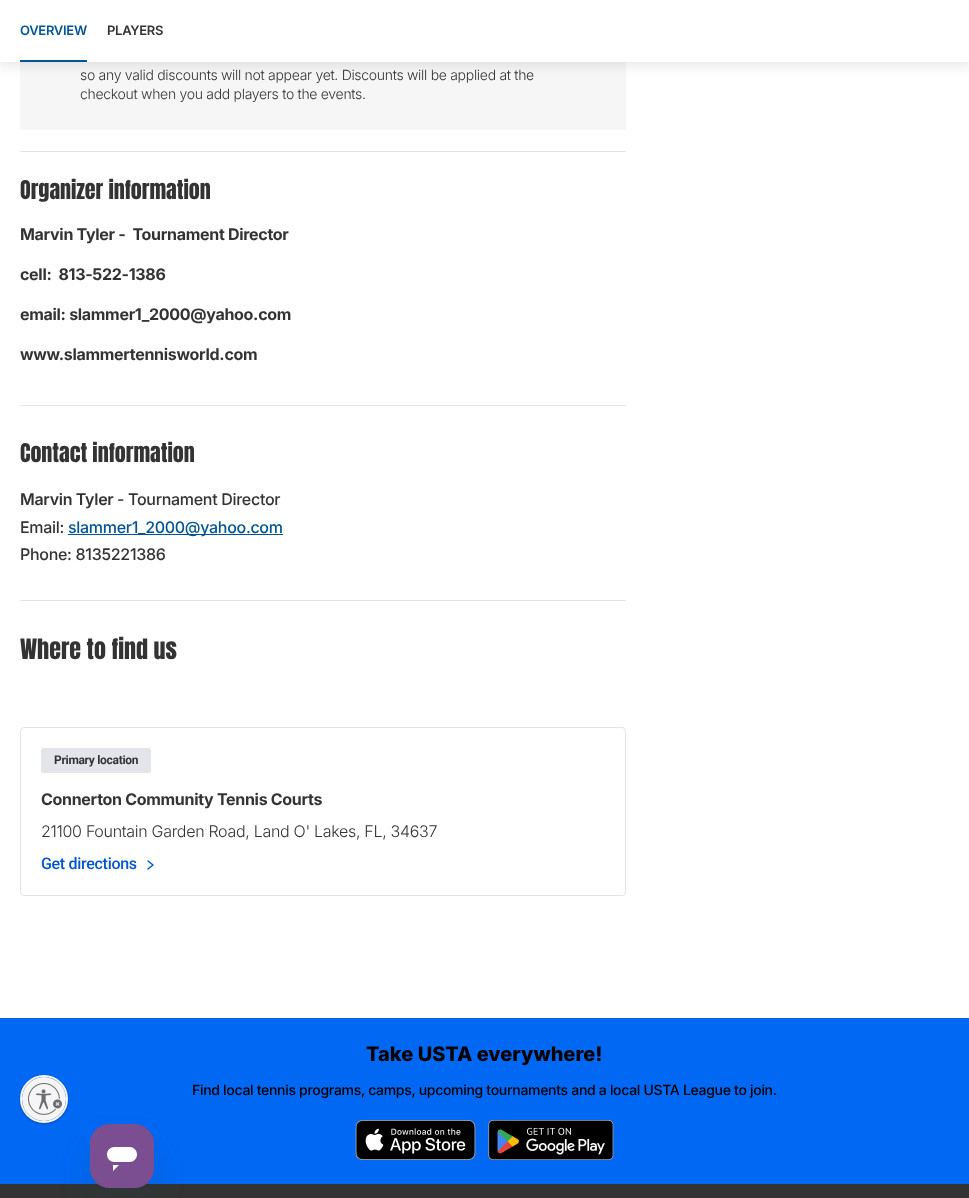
<?xml version="1.0" encoding="UTF-8"?>
<svg xmlns="http://www.w3.org/2000/svg" xmlns:xlink="http://www.w3.org/1999/xlink" width="969" height="1198">
  <defs>
    <clipPath id="clip1"><rect x="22" y="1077" width="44" height="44" rx="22" /></clipPath>
  </defs>
  <rect width="100%" height="100%" fill="#333333" />
  <rect y="62" width="969" height="956" fill="#ffffff" />
  <rect x="20" y="62" width="606" height="68" fill="#f6f6f6" />
  <rect x="-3" y="-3" width="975" height="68" fill="#000000" fill-opacity="0.1" filter="blur(6.5px)" />
  <rect width="969" height="62" fill="#ffffff" />
  <rect x="20" y="60" width="67" height="2" fill="#005595" />
  <rect x="20" y="151" width="606" height="1" fill="#e4e4e4" />
  <rect x="20" y="405" width="606" height="1" fill="#e4e4e4" />
  <rect x="20" y="600" width="606" height="1" fill="#e4e4e4" />
  <rect x="68" y="534" width="215" height="1" fill="#005595" />
  <rect x="20.5" y="727.5" width="605" height="168" rx="3.5" fill="none" stroke="#e4e4e4" />
  <rect x="41" y="748" width="110" height="25" rx="3" fill="#e3e5eb" />
  <path d="M 148 869 l 5 -4 l -5 -4" fill="none" stroke="#0056d0" stroke-width="1.5" stroke-linecap="round" stroke-linejoin="round" />
  <rect y="1018" width="969" height="166" fill="#0168f3" />
  <rect x="20" y="1076" width="48" height="48" rx="24" fill="#000000" fill-opacity="0.24" filter="blur(1px)" />
  <rect x="90" y="1144" width="64" height="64" rx="20" fill="#17494d" fill-opacity="0.15" filter="blur(15px)" />
  <circle cx="44" cy="1099" r="23" fill="none" stroke="#f5f5f5" stroke-width="2" />
  <g clip-path="url(#clip1)">
    <rect x="22" y="1078" width="44" height="44" rx="22" fill="#000000" fill-opacity="0.24" filter="blur(1px)" />
  </g>
  <circle cx="44" cy="1099" r="22" fill="#f5f5f5" />
  <image x="28" y="1083" width="34" height="32" xlink:href="image1.png" />
  <image x="355" y="1120" width="121" height="40" xlink:href="image2.png" />
  <image x="488" y="1120" width="126" height="40" xlink:href="image3.png" />
  <image x="90" y="1124" width="64" height="64" xlink:href="image4.png" />
  <text x="20" y="35" style="font-family: Inter; font-size: 13px; font-weight: 600; letter-spacing: -0.3px; fill: #005595">OVERVIEW</text>
  <text x="107" y="35" style="font-family: Inter; font-size: 13px; font-weight: 600; letter-spacing: -0.3px; fill: #333333">PLAYERS</text>
  <text x="80" y="80" style="font-family: Inter; font-size: 14px; font-weight: 300; letter-spacing: -0.3px; fill: #333333">so any valid discounts will not appear yet. Discounts will be applied at the</text>
  <text x="80" y="99" style="font-family: Inter; font-size: 14px; font-weight: 300; letter-spacing: -0.3px; fill: #333333">checkout when you add players to the events.</text>
  <text x="20" y="199" style="font-family: Anton; font-size: 22px; fill: #333333">Organizer information</text>
  <text x="20" y="240" style="font-family: Inter; font-size: 16px; font-weight: bold; letter-spacing: -0.3px; fill: #333333" xml:space="preserve">Marvin Tyler -  Tournament Director</text>
  <text x="20" y="280" style="font-family: Inter; font-size: 16px; font-weight: bold; letter-spacing: -0.3px; fill: #333333" xml:space="preserve">cell:  813-522-1386</text>
  <text x="20" y="320" style="font-family: Inter; font-size: 16px; font-weight: bold; letter-spacing: -0.3px; fill: #333333">email: slammer1_2000@yahoo.com</text>
  <text x="20" y="360" style="font-family: Inter; font-size: 16px; font-weight: bold; letter-spacing: -0.3px; fill: #333333">www.slammertennisworld.com</text>
  <text x="20" y="462" style="font-family: Anton; font-size: 22px; fill: #333333">Contact information</text>
  <text x="20" y="505" style="font-family: Inter; font-size: 16px; font-weight: 600; letter-spacing: -0.3px; fill: #333333">Marvin Tyler</text>
  <text x="117" y="505" style="font-family: Inter; font-size: 16px; font-weight: 500; letter-spacing: -0.3px; fill: #333333">- Tournament Director</text>
  <text x="20" y="533" style="font-family: Inter; font-size: 16px; font-weight: 500; letter-spacing: -0.3px; fill: #333333">Email:</text>
  <text x="68" y="533" style="font-family: Inter; font-size: 16px; font-weight: 500; letter-spacing: -0.3px; fill: #005595">slammer1_2000@yahoo.com</text>
  <text x="20" y="560" style="font-family: Inter; font-size: 16px; font-weight: 500; letter-spacing: -0.3px; fill: #333333">Phone: 8135221386</text>
  <text x="20" y="659" style="font-family: Anton; font-size: 24px; fill: #333333">Where to find us</text>
  <text x="54" y="764" style="font-family: Roboto; font-size: 12px; font-weight: bold; letter-spacing: -0.3px; fill: #333333">Primary location</text>
  <text x="41" y="805" style="font-family: Inter; font-size: 16px; font-weight: bold; letter-spacing: -0.3px; fill: #333333">Connerton Community Tennis Courts</text>
  <text x="41" y="837" style="font-family: Inter; font-size: 16px; font-weight: 300; letter-spacing: -0.3px; fill: #333333">21100 Fountain Garden Road, Land O' Lakes, FL, 34637</text>
  <text x="41" y="869" style="font-family: Roboto; font-size: 16px; font-weight: 500; letter-spacing: -0.3px; fill: #0056d0">Get directions</text>
  <text x="366" y="1061" style="font-family: Inter; font-size: 20px; font-weight: 800; fill: #000000">Take USTA everywhere!</text>
  <text x="192" y="1095" style="font-family: Inter; font-size: 14px; font-weight: 500; letter-spacing: -0.3px; fill: #000000">Find local tennis programs, camps, upcoming tournaments and a local USTA League to join.</text>
</svg>
